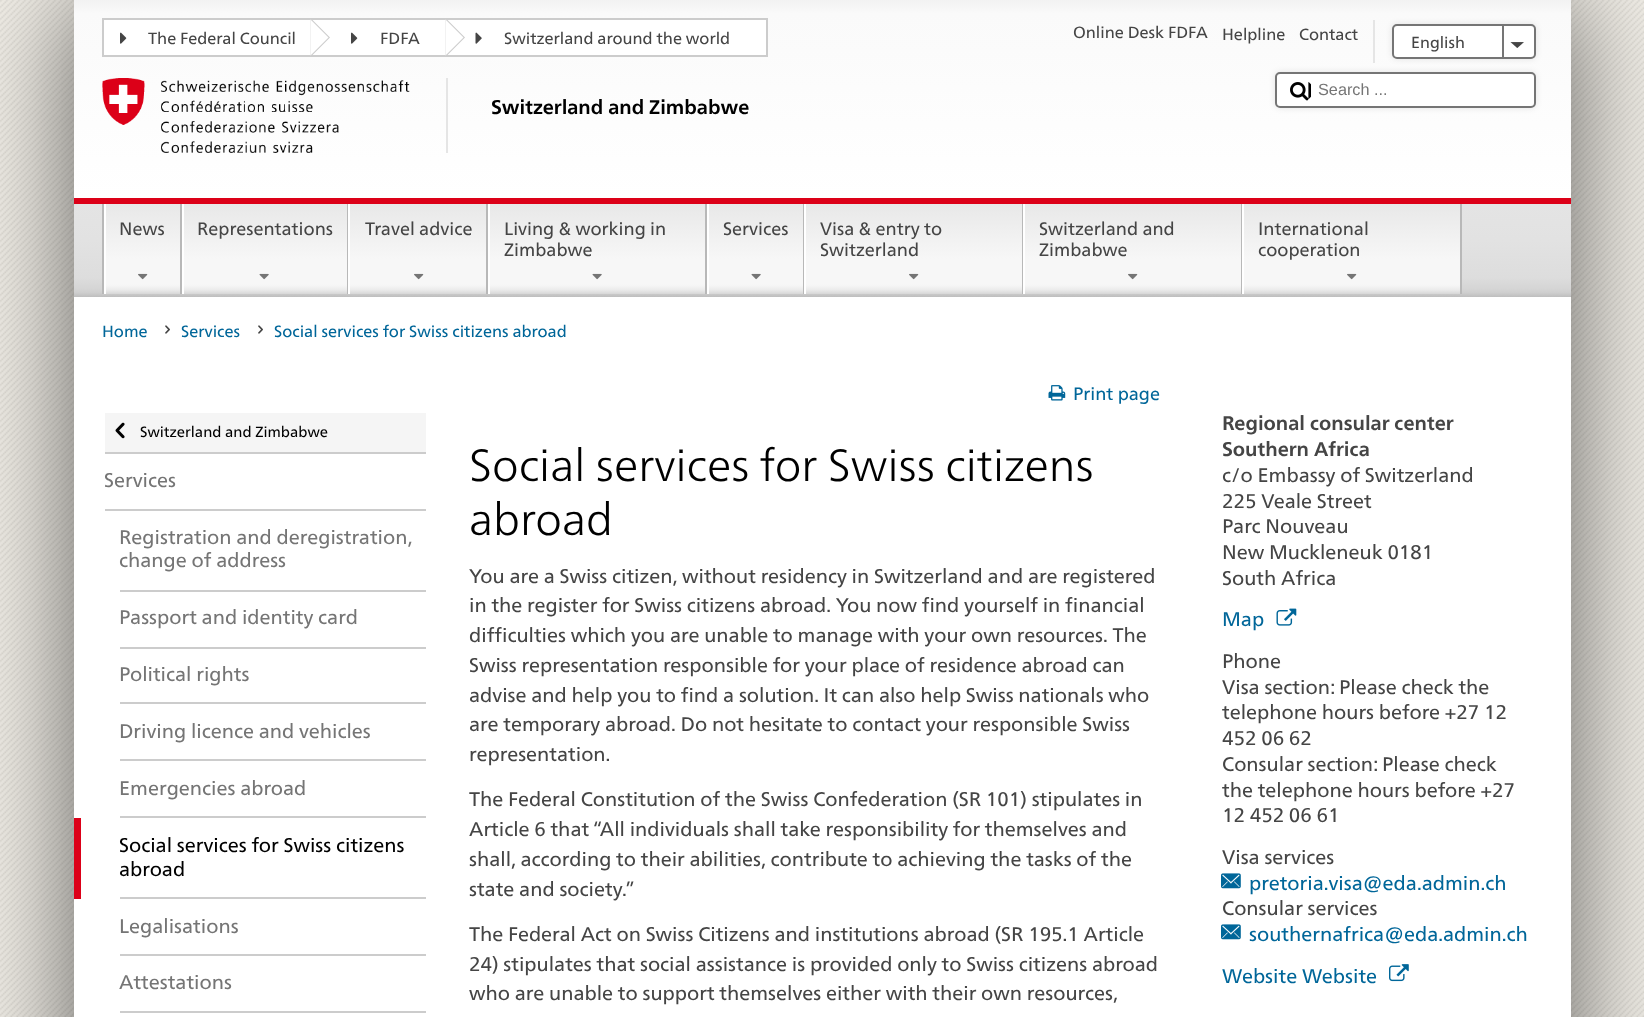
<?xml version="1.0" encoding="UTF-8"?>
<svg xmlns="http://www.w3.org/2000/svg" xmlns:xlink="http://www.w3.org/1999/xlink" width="1644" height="1017">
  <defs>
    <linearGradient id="g1" gradientUnits="userSpaceOnUse" x1="822" y1="0" x2="822" y2="198"><stop offset="0" stop-color="#f2f2f2" /><stop offset="0.07" stop-color="#fafafa" /><stop offset="1" stop-color="#ffffff" /></linearGradient>
    <linearGradient id="g2" gradientUnits="userSpaceOnUse" x1="822" y1="204" x2="822" y2="297"><stop offset="0" stop-color="#e4e4e4" /><stop offset="0.39" stop-color="#e2e2e2" /><stop offset="0.79" stop-color="#dddddd" /><stop offset="0.91" stop-color="#d5d5d5" /><stop offset="0.95" stop-color="#cfcfcf" /><stop offset="1" stop-color="#bebebe" /></linearGradient>
    <linearGradient id="g3" gradientUnits="userSpaceOnUse" x1="143" y1="204" x2="143" y2="294"><stop offset="0" stop-color="#e8e8e8" /><stop offset="0.61" stop-color="#f7f7f7" /><stop offset="0.89" stop-color="#f7f7f7" /><stop offset="0.91" stop-color="#f5f5f5" /><stop offset="0.95" stop-color="#ececec" /><stop offset="1" stop-color="#d7d7d7" /></linearGradient>
    <linearGradient id="g4" gradientUnits="userSpaceOnUse" x1="265" y1="204" x2="265" y2="294"><stop offset="0" stop-color="#e8e8e8" /><stop offset="0.61" stop-color="#f7f7f7" /><stop offset="0.89" stop-color="#f7f7f7" /><stop offset="0.91" stop-color="#f5f5f5" /><stop offset="0.95" stop-color="#ececec" /><stop offset="1" stop-color="#d7d7d7" /></linearGradient>
    <linearGradient id="g5" gradientUnits="userSpaceOnUse" x1="418" y1="204" x2="418" y2="294"><stop offset="0" stop-color="#e8e8e8" /><stop offset="0.61" stop-color="#f7f7f7" /><stop offset="0.89" stop-color="#f7f7f7" /><stop offset="0.91" stop-color="#f5f5f5" /><stop offset="0.95" stop-color="#ececec" /><stop offset="1" stop-color="#d7d7d7" /></linearGradient>
    <linearGradient id="g6" gradientUnits="userSpaceOnUse" x1="597" y1="204" x2="597" y2="294"><stop offset="0" stop-color="#e8e8e8" /><stop offset="0.61" stop-color="#f7f7f7" /><stop offset="0.89" stop-color="#f7f7f7" /><stop offset="0.91" stop-color="#f5f5f5" /><stop offset="0.95" stop-color="#ececec" /><stop offset="1" stop-color="#d7d7d7" /></linearGradient>
    <linearGradient id="g7" gradientUnits="userSpaceOnUse" x1="755" y1="204" x2="755" y2="294"><stop offset="0" stop-color="#e8e8e8" /><stop offset="0.61" stop-color="#f7f7f7" /><stop offset="0.89" stop-color="#f7f7f7" /><stop offset="0.91" stop-color="#f5f5f5" /><stop offset="0.95" stop-color="#ececec" /><stop offset="1" stop-color="#d7d7d7" /></linearGradient>
    <linearGradient id="g8" gradientUnits="userSpaceOnUse" x1="914" y1="204" x2="914" y2="294"><stop offset="0" stop-color="#e8e8e8" /><stop offset="0.61" stop-color="#f7f7f7" /><stop offset="0.89" stop-color="#f7f7f7" /><stop offset="0.91" stop-color="#f5f5f5" /><stop offset="0.95" stop-color="#ececec" /><stop offset="1" stop-color="#d7d7d7" /></linearGradient>
    <linearGradient id="g9" gradientUnits="userSpaceOnUse" x1="1133" y1="204" x2="1133" y2="294"><stop offset="0" stop-color="#e8e8e8" /><stop offset="0.61" stop-color="#f7f7f7" /><stop offset="0.89" stop-color="#f7f7f7" /><stop offset="0.91" stop-color="#f5f5f5" /><stop offset="0.95" stop-color="#ececec" /><stop offset="1" stop-color="#d7d7d7" /></linearGradient>
    <linearGradient id="g10" gradientUnits="userSpaceOnUse" x1="1352" y1="204" x2="1352" y2="294"><stop offset="0" stop-color="#e8e8e8" /><stop offset="0.61" stop-color="#f7f7f7" /><stop offset="0.89" stop-color="#f7f7f7" /><stop offset="0.91" stop-color="#f5f5f5" /><stop offset="0.95" stop-color="#ececec" /><stop offset="1" stop-color="#d7d7d7" /></linearGradient>
  </defs>
  <rect width="100%" height="100%" fill="#ffffff" />
  <image x="0" y="0" width="1644" height="1017" xlink:href="image1.png" />
  <rect x="74" width="1497" height="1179" fill="#000000" fill-opacity="0.6" filter="blur(54px)" />
  <rect x="74" y="297" width="1497" height="720" fill="#ffffff" />
  <rect x="74" width="1497" height="198" fill="url(#g1)" />
  <rect x="103" y="19" width="664" height="37" fill="#ffffff" stroke="#cccccc" stroke-width="2" />
  <path d="M 310.5 57 v -39 l 19.5 19.5 z" fill="#cccccc" />
  <image x="120" y="32" width="7" height="12" xlink:href="image2.png" />
  <path d="M 310.5 55.5 v -36 l 18 18 z" fill="#ffffff" />
  <path d="M 445.5 57 v -39 l 19.5 19.5 z" fill="#cccccc" />
  <image x="351" y="32" width="7" height="12" xlink:href="image2.png" />
  <path d="M 445.5 55.5 v -36 l 18 18 z" fill="#ffffff" />
  <image x="475" y="32" width="7" height="12" xlink:href="image3.png" />
  <rect x="1275" y="72" width="261" height="36" rx="5" fill="#000000" fill-opacity="0.1" filter="blur(3px)" />
  <rect x="1373" y="20" width="2" height="43" fill="#e5e5e5" />
  <rect x="1392" y="24" width="144" height="35" rx="5" fill="#000000" fill-opacity="0.1" filter="blur(3px)" />
  <rect x="1393" y="25" width="142" height="33" rx="4" fill="#ffffff" stroke="#757575" stroke-width="2" />
  <image x="1510" y="42" width="14" height="6" xlink:href="image4.png" />
  <rect x="1502" y="24" width="2" height="35" fill="#757575" />
  <rect x="1276" y="73" width="259" height="34" rx="4" fill="#ffffff" stroke="#757575" stroke-width="2" />
  <image x="1290" y="82" width="21" height="19" xlink:href="image5.png" />
  <image x="102" y="78" width="308" height="75" xlink:href="image6.png" />
  <rect x="446" y="78" width="2" height="75" fill="#e5e5e5" />
  <rect x="74" y="204" width="1497" height="93" fill="url(#g2)" />
  <rect x="74" y="198" width="1497" height="6" fill="#dc0018" />
  <rect x="102" y="204" width="2" height="90" fill="#b8b8b8" />
  <rect x="106" y="204" width="74" height="90" fill="url(#g3)" />
  <rect x="180" y="204" width="2" height="90" fill="#b8b8b8" />
  <rect x="104" y="204" width="2" height="90" fill="#ffffff" />
  <image x="138" y="273" width="10" height="7" xlink:href="image7.png" />
  <rect x="184" y="204" width="163" height="90" fill="url(#g4)" />
  <rect x="347" y="204" width="1" height="90" fill="#b8b8b8" />
  <rect x="182" y="204" width="2" height="90" fill="#ffffff" />
  <image x="259" y="273" width="10" height="7" xlink:href="image8.png" />
  <rect x="350" y="204" width="136" height="90" fill="url(#g5)" />
  <rect x="486" y="204" width="2" height="90" fill="#b8b8b8" />
  <rect x="348" y="204" width="2" height="90" fill="#ffffff" />
  <image x="414" y="273" width="10" height="7" xlink:href="image7.png" />
  <rect x="490" y="204" width="215" height="90" fill="url(#g6)" />
  <rect x="705" y="204" width="2" height="90" fill="#b8b8b8" />
  <rect x="488" y="204" width="2" height="90" fill="#ffffff" />
  <image x="592" y="273" width="10" height="7" xlink:href="image8.png" />
  <rect x="709" y="204" width="94" height="90" fill="url(#g7)" />
  <rect x="803" y="204" width="1" height="90" fill="#b8b8b8" />
  <rect x="707" y="204" width="2" height="90" fill="#ffffff" />
  <image x="751" y="273" width="10" height="7" xlink:href="image8.png" />
  <rect x="806" y="204" width="216" height="90" fill="url(#g8)" />
  <rect x="1022" y="204" width="1" height="90" fill="#b8b8b8" />
  <rect x="804" y="204" width="2" height="90" fill="#ffffff" />
  <image x="909" y="273" width="10" height="7" xlink:href="image7.png" />
  <rect x="1025" y="204" width="216" height="90" fill="url(#g9)" />
  <rect x="1241" y="204" width="1" height="90" fill="#b8b8b8" />
  <rect x="1023" y="204" width="2" height="90" fill="#ffffff" />
  <image x="1128" y="273" width="10" height="7" xlink:href="image7.png" />
  <rect x="1244" y="204" width="216" height="90" fill="url(#g10)" />
  <rect x="1460" y="204" width="2" height="90" fill="#b8b8b8" />
  <rect x="1242" y="204" width="2" height="90" fill="#ffffff" />
  <image x="1347" y="273" width="10" height="7" xlink:href="image7.png" />
  <image x="165" y="325" width="5" height="9" xlink:href="image9.png" />
  <image x="258" y="325" width="5" height="9" xlink:href="image9.png" />
  <rect x="105" y="413" width="321" height="39" fill="#f5f5f5" />
  <rect x="105" y="452" width="321" height="2" fill="#cccccc" />
  <image x="115" y="422" width="10" height="17" xlink:href="image10.png" />
  <rect x="105" y="509" width="321" height="2" fill="#cccccc" />
  <rect x="120" y="590" width="306" height="2" fill="#cccccc" />
  <rect x="120" y="647" width="306" height="2" fill="#cccccc" />
  <rect x="120" y="702" width="306" height="2" fill="#cccccc" />
  <rect x="120" y="759" width="306" height="2" fill="#cccccc" />
  <rect x="120" y="816" width="306" height="2" fill="#cccccc" />
  <rect x="74" y="818" width="7" height="81" fill="#dc0018" />
  <rect x="120" y="897" width="306" height="2" fill="#cccccc" />
  <rect x="120" y="954" width="306" height="2" fill="#cccccc" />
  <rect x="120" y="1011" width="306" height="2" fill="#cccccc" />
  <image x="1048" y="385" width="18" height="16" xlink:href="image11.png" />
  <image x="1276" y="608" width="21" height="18" xlink:href="image12.png" />
  <image x="1221" y="873" width="20" height="16" xlink:href="image13.png" />
  <image x="1221" y="924" width="20" height="16" xlink:href="image13.png" />
  <image x="1389" y="964" width="20" height="18" xlink:href="image14.png" />
  <text x="148" y="44" style="font-family: 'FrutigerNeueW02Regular'; font-size: 16.25px; fill: #454545">The Federal Council</text>
  <text x="380" y="44" style="font-family: 'FrutigerNeueW02Regular'; font-size: 16.25px; fill: #454545">FDFA</text>
  <text x="504" y="44" style="font-family: 'FrutigerNeueW02Regular'; font-size: 16.25px; fill: #454545">Switzerland around the world</text>
  <text x="1073" y="38" style="font-family: 'FrutigerNeueW02Regular'; font-size: 16.25px; fill: #454545">Online Desk FDFA</text>
  <text x="1222" y="40" style="font-family: 'FrutigerNeueW02Regular'; font-size: 16.25px; fill: #454545">Helpline</text>
  <text x="1299" y="40" style="font-family: 'FrutigerNeueW02Regular'; font-size: 16.25px; fill: #454545">Contact</text>
  <text x="1411" y="48" style="font-family: 'FrutigerNeueW02Regular'; font-size: 16px; fill: #454545">English</text>
  <text x="1318" y="95" style="font-family: Liberation Sans; font-size: 16.25px; fill: #757575">Search ...</text>
  <text x="491" y="114" style="font-family: 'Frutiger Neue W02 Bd'; font-size: 19.8px; font-weight: bold; fill: #000000">Switzerland and Zimbabwe</text>
  <text x="119" y="235" style="font-family: 'FrutigerNeueW02Regular'; font-size: 18px; fill: #454545">News</text>
  <text x="197" y="235" style="font-family: 'FrutigerNeueW02Regular'; font-size: 18px; fill: #454545">Representations</text>
  <text x="365" y="235" style="font-family: 'FrutigerNeueW02Regular'; font-size: 18px; fill: #454545">Travel advice</text>
  <text x="504" y="235" style="font-family: 'FrutigerNeueW02Regular'; font-size: 18px; fill: #454545">Living &amp; working in</text>
  <text x="504" y="256" style="font-family: 'FrutigerNeueW02Regular'; font-size: 18px; fill: #454545">Zimbabwe</text>
  <text x="723" y="235" style="font-family: 'FrutigerNeueW02Regular'; font-size: 18px; fill: #454545">Services</text>
  <text x="820" y="235" style="font-family: 'FrutigerNeueW02Regular'; font-size: 18px; fill: #454545">Visa &amp; entry to</text>
  <text x="820" y="256" style="font-family: 'FrutigerNeueW02Regular'; font-size: 18px; fill: #454545">Switzerland</text>
  <text x="1039" y="235" style="font-family: 'FrutigerNeueW02Regular'; font-size: 18px; fill: #454545">Switzerland and</text>
  <text x="1039" y="256" style="font-family: 'FrutigerNeueW02Regular'; font-size: 18px; fill: #454545">Zimbabwe</text>
  <text x="1258" y="235" style="font-family: 'FrutigerNeueW02Regular'; font-size: 18px; fill: #454545">International</text>
  <text x="1258" y="256" style="font-family: 'FrutigerNeueW02Regular'; font-size: 18px; fill: #454545">cooperation</text>
  <text x="102" y="337" style="font-family: 'FrutigerNeueW02Regular'; font-size: 16.25px; fill: #006699">Home</text>
  <text x="181" y="337" style="font-family: 'FrutigerNeueW02Regular'; font-size: 16.25px; fill: #006699">Services</text>
  <text x="274" y="337" style="font-family: 'FrutigerNeueW02Regular'; font-size: 16.25px; fill: #006699">Social services for Swiss citizens abroad</text>
  <text x="140" y="437" style="font-family: 'FrutigerNeueW02Regular'; font-size: 14.8px; fill: #000000">Switzerland and Zimbabwe</text>
  <text x="104" y="487" style="font-family: 'FrutigerNeueW02Regular'; font-size: 19.8px; fill: #757575">Services</text>
  <text x="119" y="544" style="font-family: 'FrutigerNeueW02Regular'; font-size: 19.8px; fill: #757575">Registration and deregistration,</text>
  <text x="119" y="567" style="font-family: 'FrutigerNeueW02Regular'; font-size: 19.8px; fill: #757575">change of address</text>
  <text x="119" y="624" style="font-family: 'FrutigerNeueW02Regular'; font-size: 19.8px; fill: #757575">Passport and identity card</text>
  <text x="119" y="681" style="font-family: 'FrutigerNeueW02Regular'; font-size: 19.8px; fill: #757575">Political rights</text>
  <text x="119" y="738" style="font-family: 'FrutigerNeueW02Regular'; font-size: 19.8px; fill: #757575">Driving licence and vehicles</text>
  <text x="119" y="795" style="font-family: 'FrutigerNeueW02Regular'; font-size: 19.8px; fill: #757575">Emergencies abroad</text>
  <text x="119" y="852" style="font-family: 'FrutigerNeueW02Regular'; font-size: 19.8px; fill: #000000">Social services for Swiss citizens</text>
  <text x="119" y="876" style="font-family: 'FrutigerNeueW02Regular'; font-size: 19.8px; fill: #000000">abroad</text>
  <text x="119" y="933" style="font-family: 'FrutigerNeueW02Regular'; font-size: 19.8px; fill: #757575">Legalisations</text>
  <text x="119" y="989" style="font-family: 'FrutigerNeueW02Regular'; font-size: 19.8px; fill: #757575">Attestations</text>
  <text x="1073" y="400" style="font-family: 'FrutigerNeueW02Regular'; font-size: 18px; fill: #006699">Print page</text>
  <text x="469" y="481" style="font-family: 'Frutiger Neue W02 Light'; font-size: 45px; font-weight: 300; fill: #000000">Social services for Swiss citizens</text>
  <text x="469" y="535" style="font-family: 'Frutiger Neue W02 Light'; font-size: 45px; font-weight: 300; fill: #000000">abroad</text>
  <text x="469" y="583" style="font-family: 'FrutigerNeueW02Regular'; font-size: 19.8px; fill: #454545">You are a Swiss citizen, without residency in Switzerland and are registered</text>
  <text x="469" y="612" style="font-family: 'FrutigerNeueW02Regular'; font-size: 19.8px; fill: #454545">in the register for Swiss citizens abroad. You now find yourself in financial</text>
  <text x="469" y="642" style="font-family: 'FrutigerNeueW02Regular'; font-size: 19.8px; fill: #454545">difficulties which you are unable to manage with your own resources. The</text>
  <text x="469" y="672" style="font-family: 'FrutigerNeueW02Regular'; font-size: 19.8px; fill: #454545">Swiss representation responsible for your place of residence abroad can</text>
  <text x="469" y="702" style="font-family: 'FrutigerNeueW02Regular'; font-size: 19.8px; fill: #454545">advise and help you to find a solution. It can also help Swiss nationals who</text>
  <text x="469" y="731" style="font-family: 'FrutigerNeueW02Regular'; font-size: 19.8px; fill: #454545">are temporary abroad. Do not hesitate to contact your responsible Swiss</text>
  <text x="469" y="761" style="font-family: 'FrutigerNeueW02Regular'; font-size: 19.8px; fill: #454545">representation.</text>
  <text x="469" y="806" style="font-family: 'FrutigerNeueW02Regular'; font-size: 19.8px; fill: #454545">The Federal Constitution of the Swiss Confederation (SR 101) stipulates in</text>
  <text x="469" y="836" style="font-family: 'FrutigerNeueW02Regular'; font-size: 19.8px; fill: #454545">Article 6 that “All individuals shall take responsibility for themselves and</text>
  <text x="469" y="866" style="font-family: 'FrutigerNeueW02Regular'; font-size: 19.8px; fill: #454545">shall, according to their abilities, contribute to achieving the tasks of the</text>
  <text x="469" y="896" style="font-family: 'FrutigerNeueW02Regular'; font-size: 19.8px; fill: #454545">state and society.”</text>
  <text x="469" y="941" style="font-family: 'FrutigerNeueW02Regular'; font-size: 19.8px; fill: #454545">The Federal Act on Swiss Citizens and institutions abroad (SR 195.1 Article</text>
  <text x="469" y="971" style="font-family: 'FrutigerNeueW02Regular'; font-size: 19.8px; fill: #454545">24) stipulates that social assistance is provided only to Swiss citizens abroad</text>
  <text x="469" y="1000" style="font-family: 'FrutigerNeueW02Regular'; font-size: 19.8px; fill: #454545">who are unable to support themselves either with their own resources,</text>
  <text x="1222" y="430" style="font-family: 'Frutiger Neue W02 Bd'; font-size: 19.8px; font-weight: bold; fill: #454545">Regional consular center</text>
  <text x="1222" y="456" style="font-family: 'Frutiger Neue W02 Bd'; font-size: 19.8px; font-weight: bold; fill: #454545">Southern Africa</text>
  <text x="1222" y="482" style="font-family: 'FrutigerNeueW02Regular'; font-size: 19.8px; fill: #454545">c/o Embassy of Switzerland</text>
  <text x="1222" y="508" style="font-family: 'FrutigerNeueW02Regular'; font-size: 19.8px; fill: #454545">225 Veale Street</text>
  <text x="1222" y="533" style="font-family: 'FrutigerNeueW02Regular'; font-size: 19.8px; fill: #454545">Parc Nouveau</text>
  <text x="1222" y="559" style="font-family: 'FrutigerNeueW02Regular'; font-size: 19.8px; fill: #454545">New Muckleneuk 0181</text>
  <text x="1222" y="585" style="font-family: 'FrutigerNeueW02Regular'; font-size: 19.8px; fill: #454545">South Africa</text>
  <text x="1222" y="626" style="font-family: 'FrutigerNeueW02Regular'; font-size: 19.8px; fill: #006699">Map</text>
  <text x="1222" y="668" style="font-family: 'FrutigerNeueW02Regular'; font-size: 19.8px; fill: #454545">Phone</text>
  <text x="1222" y="694" style="font-family: 'FrutigerNeueW02Regular'; font-size: 19.8px; fill: #454545">Visa section:</text>
  <text x="1339" y="694" style="font-family: 'FrutigerNeueW02Regular'; font-size: 19.8px; fill: #454545">Please check the</text>
  <text x="1222" y="719" style="font-family: 'FrutigerNeueW02Regular'; font-size: 19.8px; fill: #454545">telephone hours before +27 12</text>
  <text x="1222" y="745" style="font-family: 'FrutigerNeueW02Regular'; font-size: 19.8px; fill: #454545">452 06 62</text>
  <text x="1222" y="771" style="font-family: 'FrutigerNeueW02Regular'; font-size: 19.8px; fill: #454545">Consular section:</text>
  <text x="1382" y="771" style="font-family: 'FrutigerNeueW02Regular'; font-size: 19.8px; fill: #454545">Please check</text>
  <text x="1222" y="797" style="font-family: 'FrutigerNeueW02Regular'; font-size: 19.8px; fill: #454545">the telephone hours before +27</text>
  <text x="1222" y="822" style="font-family: 'FrutigerNeueW02Regular'; font-size: 19.8px; fill: #454545">12 452 06 61</text>
  <text x="1222" y="864" style="font-family: 'FrutigerNeueW02Regular'; font-size: 19.8px; fill: #454545">Visa services</text>
  <text x="1249" y="890" style="font-family: 'FrutigerNeueW02Regular'; font-size: 19.8px; fill: #006699">pretoria.visa@eda.admin.ch</text>
  <text x="1222" y="915" style="font-family: 'FrutigerNeueW02Regular'; font-size: 19.8px; fill: #454545">Consular services</text>
  <text x="1249" y="941" style="font-family: 'FrutigerNeueW02Regular'; font-size: 19.8px; fill: #006699">southernafrica@eda.admin.ch</text>
  <text x="1222" y="983" style="font-family: 'FrutigerNeueW02Regular'; font-size: 19.8px; fill: #006699">Website Website</text>
</svg>
